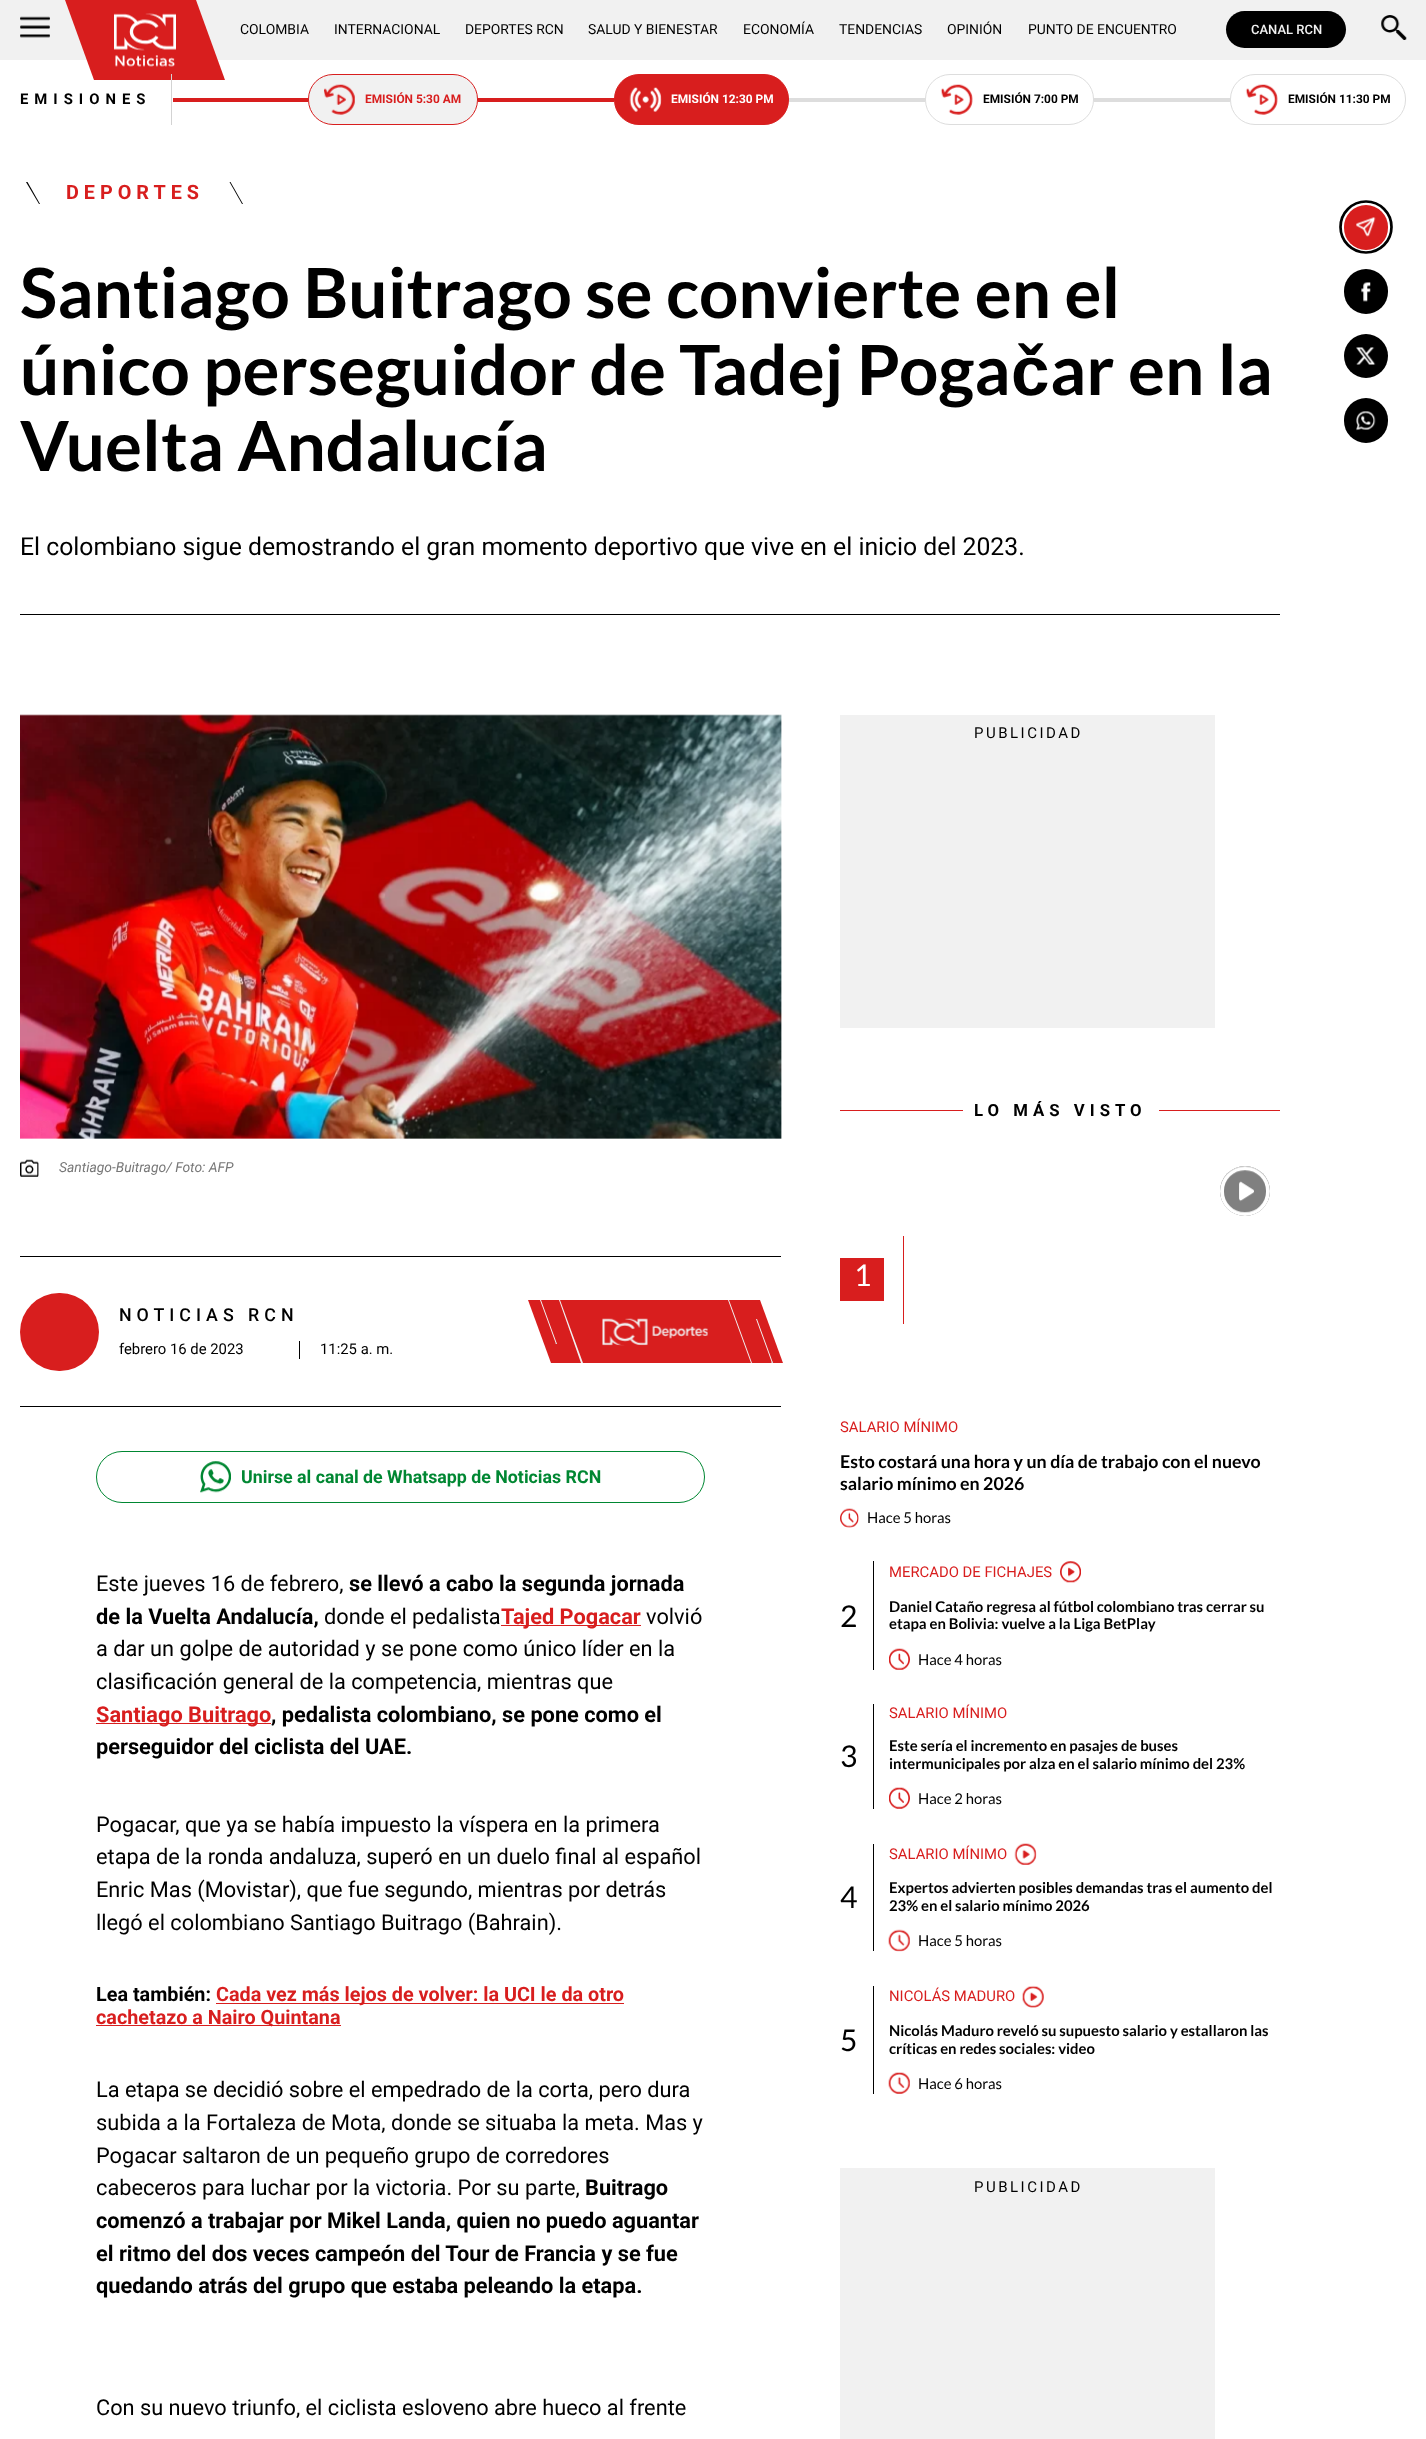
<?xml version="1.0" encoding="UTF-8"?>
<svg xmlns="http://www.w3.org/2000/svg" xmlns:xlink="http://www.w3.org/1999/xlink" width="1426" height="2439">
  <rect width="100%" height="100%" fill="#ffffff" />
  <rect width="1426" height="60" fill="#f1f1f1" />
  <image x="20" y="16" width="30" height="22" xlink:href="image1.png" />
  <path d="M 65 0 h 131 l 29 80 h -131 z" fill="#d81e1e" />
  <image x="114" y="13" width="62" height="54" xlink:href="image2.png" />
  <rect x="1226" y="11" width="120" height="37" rx="18.5" fill="#000000" />
  <image x="1381" y="15" width="26" height="25" xlink:href="image3.png" />
  <rect x="171" y="74" width="1" height="51" fill="#d3d3d3" />
  <rect x="173" y="98" width="135" height="4" fill="#d81e1e" />
  <rect x="308.5" y="74.5" width="169" height="50" rx="24.5" fill="#f1f1f1" stroke="#d81e1e" />
  <image x="324" y="84" width="31" height="31" xlink:href="image4.png" />
  <rect x="478" y="98" width="136" height="4" fill="#d81e1e" />
  <rect x="614.5" y="74.5" width="174" height="50" rx="24.5" fill="#d81e1e" stroke="#d81e1e" />
  <image x="629" y="87" width="33" height="25" xlink:href="image5.png" />
  <rect x="789" y="98" width="136" height="4" fill="#dddddd" />
  <rect x="925.5" y="74.5" width="168" height="50" rx="24.5" fill="none" stroke="#dddddd" />
  <image x="940" y="84" width="33" height="31" xlink:href="image6.png" />
  <rect x="1094" y="98" width="136" height="4" fill="#dddddd" />
  <rect x="1230.5" y="74.5" width="175" height="50" rx="24.5" fill="none" stroke="#dddddd" />
  <image x="1245" y="84" width="33" height="31" xlink:href="image6.png" />
  <path d="M 26 182 h 1.5 l 12.5 22 h -1 z" fill="#000000" />
  <path d="M 229.5 182 h 1 l 12.5 22 h -1 z" fill="#000000" />
  <rect x="20" y="614" width="1260" height="1" fill="#000000" />
  <rect x="1344" y="205" width="44" height="45" rx="22" fill="#d81e1e" />
  <image x="1356" y="217" width="20" height="20" xlink:href="image7.png" />
  <circle cx="1366" cy="227" r="25.5" fill="none" stroke="#000000" stroke-width="2.7" />
  <rect x="1344" y="269" width="44" height="45" rx="22" fill="#000000" />
  <image x="1361" y="282" width="10" height="20" xlink:href="image8.png" />
  <circle cx="1366" cy="356" r="22" fill="#000000" />
  <image x="1356" y="347" width="20" height="18" xlink:href="image9.png" />
  <rect x="1344" y="398" width="44" height="45" rx="22" fill="#000000" />
  <image x="1356" y="411" width="20" height="20" xlink:href="image10.png" />
  <image x="20" y="714" width="762" height="425" xlink:href="image11.png" />
  <image x="20" y="1159" width="19" height="18" xlink:href="image12.png" />
  <rect x="20" y="1256" width="761" height="1" fill="#000000" />
  <rect x="20" y="1406" width="761" height="1" fill="#000000" />
  <rect x="20" y="1293" width="79" height="78" rx="39" fill="#d81e1e" />
  <rect x="299" y="1341" width="1" height="18" fill="#000000" />
  <path d="M 528 1300 h 232 l 23 63 h -232 z" fill="#d81e1e" />
  <path d="M 559 1300 h 1 l 23 63 h -2 z m -19 0 h 1 l 16 44 h -1 z" fill="#f1f1f1" />
  <path d="M 555.5 1343 h 1.5 v 1 h -1 z" fill="#d3d3d3" />
  <image x="602" y="1318" width="106" height="28" xlink:href="image13.png" />
  <path d="M 728 1300 h 1 l 23 63 h -1 z m 28 19 h 1 l 16 44 h -1 z" fill="#f1f1f1" />
  <path d="M 771.5 1361.5 h 1 l 0.5 1.5 h -1.5 z" fill="#d3d3d3" />
  <rect x="96.5" y="1451.5" width="608" height="51" rx="25.5" fill="none" stroke="#008732" />
  <image x="200" y="1461" width="31" height="32" xlink:href="image14.png" />
  <rect x="501" y="1625" width="140" height="1" fill="#d81e1e" />
  <rect x="96" y="1723" width="175" height="1" fill="#d81e1e" />
  <rect x="216" y="2003" width="408" height="1" fill="#d81e1e" />
  <rect x="96" y="2025" width="245" height="1" fill="#d81e1e" />
  <rect x="840" y="715" width="375" height="313" fill="#f1f1f1" />
  <rect x="840" y="1110" width="123" height="1" fill="#d81e1e" />
  <rect x="1159" y="1110" width="121" height="1" fill="#d81e1e" />
  <circle cx="1245" cy="1191" r="25" fill="#808080" />
  <image x="1220" y="1166" width="50" height="50" xlink:href="image15.png" />
  <rect x="840" y="1258" width="44" height="43" fill="#d81e1e" />
  <rect x="903" y="1236" width="1" height="88" fill="#d81e1e" />
  <image x="840" y="1508" width="19" height="20" xlink:href="image16.png" />
  <rect x="873" y="1561" width="1" height="109" fill="#000000" />
  <image x="1060" y="1561" width="21" height="22" xlink:href="image17.png" />
  <image x="889" y="1648" width="21" height="22" xlink:href="image18.png" />
  <rect x="873" y="1704" width="1" height="105" fill="#000000" />
  <image x="889" y="1787" width="21" height="22" xlink:href="image19.png" />
  <rect x="873" y="1844" width="1" height="107" fill="#000000" />
  <image x="1014" y="1843" width="23" height="22" xlink:href="image20.png" />
  <image x="888" y="1929" width="22" height="23" xlink:href="image21.png" />
  <rect x="873" y="1986" width="1" height="108" fill="#000000" />
  <image x="1022" y="1985" width="22" height="23" xlink:href="image22.png" />
  <image x="888" y="2072" width="22" height="22" xlink:href="image23.png" />
  <rect x="840" y="2168" width="375" height="271" fill="#f1f1f1" />
  <text x="240" y="34" style="font-family: Roboto; font-size: 13.9px; fill: #000000">COLOMBIA</text>
  <text x="334" y="34" style="font-family: Roboto; font-size: 13.9px; fill: #000000">INTERNACIONAL</text>
  <text x="465" y="34" style="font-family: Roboto; font-size: 13.9px; fill: #000000">DEPORTES RCN</text>
  <text x="588" y="34" style="font-family: Roboto; font-size: 13.9px; fill: #000000">SALUD Y BIENESTAR</text>
  <text x="743" y="34" style="font-family: Roboto; font-size: 13.9px; fill: #000000">ECONOMÍA</text>
  <text x="839" y="34" style="font-family: Roboto; font-size: 13.9px; fill: #000000">TENDENCIAS</text>
  <text x="947" y="34" style="font-family: Roboto; font-size: 13.9px; fill: #000000">OPINIÓN</text>
  <text x="1028" y="34" style="font-family: Roboto; font-size: 13.9px; fill: #000000">PUNTO DE ENCUENTRO</text>
  <text x="1251" y="34" style="font-family: Roboto; font-size: 13px; font-weight: 500; fill: #f1f1f1">CANAL RCN</text>
  <text x="20" y="104" style="font-family: Roboto; font-size: 14.85px; font-weight: bold; letter-spacing: 6px; fill: #000000">EMISIONES</text>
  <text x="365" y="103" style="font-family: Roboto; font-size: 11.9px; font-weight: bold; fill: #d81e1e">EMISIÓN 5:30 AM</text>
  <text x="671" y="103" style="font-family: Roboto; font-size: 11.9px; font-weight: bold; fill: #ffffff">EMISIÓN 12:30 PM</text>
  <text x="983" y="103" style="font-family: Roboto; font-size: 11.9px; font-weight: bold; fill: #000000">EMISIÓN 7:00 PM</text>
  <text x="1288" y="103" style="font-family: Roboto; font-size: 11.9px; font-weight: bold; fill: #000000">EMISIÓN 11:30 PM</text>
  <text x="66" y="199" style="font-family: Roboto; font-size: 19.8px; font-weight: bold; letter-spacing: 5px; fill: #d81e1e">DEPORTES</text>
  <text x="20" y="318" style="font-family: Lato; font-size: 69.25px; font-weight: bold; fill: #000000">Santiago Buitrago se convierte en el</text>
  <text x="20" y="395" style="font-family: Lato; font-size: 69.25px; font-weight: bold; fill: #000000">único perseguidor de Tadej Poga</text>
  <text x="1011" y="395" style="font-family: Liberation Sans; font-size: 69.25px; font-weight: bold; fill: #000000">č</text>
  <text x="1050" y="395" style="font-family: Lato; font-size: 69.25px; font-weight: bold; fill: #000000">ar en la</text>
  <text x="20" y="471" style="font-family: Lato; font-size: 69.25px; font-weight: bold; fill: #000000">Vuelta Andalucía</text>
  <text x="20" y="555" style="font-family: Roboto; font-size: 24.75px; fill: #000000">El colombiano sigue demostrando el gran momento deportivo que vive en el inicio del 2023.</text>
  <text x="59" y="1172" style="font-family: Roboto; font-size: 13.9px; font-style: italic; fill: #777777">Santiago-Buitrago/ Foto: AFP</text>
  <text x="119" y="1321" style="font-family: Roboto; font-size: 17.8px; font-weight: 500; letter-spacing: 5px; fill: #000000">NOTICIAS RCN</text>
  <text x="119" y="1354" style="font-family: Roboto; font-size: 14.85px; fill: #000000">febrero 16 de 2023</text>
  <text x="320" y="1354" style="font-family: Roboto; font-size: 14.85px; fill: #000000">11:25 a. m.</text>
  <text x="241" y="1483" style="font-family: Roboto; font-size: 17.8px; font-weight: bold; fill: #008732">Unirse al canal de Whatsapp de Noticias RCN</text>
  <text x="96" y="1591" style="font-family: Roboto; font-size: 21.75px; fill: #000000">Este jueves 16 de febrero,</text>
  <text x="349" y="1591" style="font-family: Roboto; font-size: 21.75px; font-weight: bold; fill: #000000">se llevó a cabo la segunda jornada</text>
  <text x="96" y="1624" style="font-family: Roboto; font-size: 21.75px; font-weight: bold; fill: #000000">de la Vuelta Andalucía,</text>
  <text x="324" y="1624" style="font-family: Roboto; font-size: 21.75px; fill: #000000">donde el pedalista</text>
  <text x="501" y="1624" style="font-family: Roboto; font-size: 21.75px; font-weight: bold; fill: #d81e1e">Tajed Pogacar</text>
  <text x="646" y="1624" style="font-family: Roboto; font-size: 21.75px; fill: #000000">volvió</text>
  <text x="96" y="1656" style="font-family: Roboto; font-size: 21.75px; fill: #000000">a dar un golpe de autoridad y se pone como único líder en la</text>
  <text x="96" y="1689" style="font-family: Roboto; font-size: 21.75px; fill: #000000">clasificación general de la competencia, mientras que</text>
  <text x="96" y="1722" style="font-family: Roboto; font-size: 21.75px; font-weight: bold; fill: #d81e1e">Santiago Buitrago</text>
  <text x="271" y="1722" style="font-family: Roboto; font-size: 21.75px; font-weight: bold; fill: #000000">, pedalista colombiano, se pone como el</text>
  <text x="96" y="1754" style="font-family: Roboto; font-size: 21.75px; font-weight: bold; fill: #000000">perseguidor del ciclista del UAE.</text>
  <text x="96" y="1832" style="font-family: Roboto; font-size: 21.75px; fill: #000000">Pogacar, que ya se había impuesto la víspera en la primera</text>
  <text x="96" y="1864" style="font-family: Roboto; font-size: 21.75px; fill: #000000">etapa de la ronda andaluza, superó en un duelo final al español</text>
  <text x="96" y="1897" style="font-family: Roboto; font-size: 21.75px; fill: #000000">Enric Mas (Movistar), que fue segundo, mientras por detrás</text>
  <text x="96" y="1930" style="font-family: Roboto; font-size: 21.75px; fill: #000000">llegó el colombiano Santiago Buitrago (Bahrain).</text>
  <text x="96" y="2001" style="font-family: Roboto; font-size: 19.8px; font-weight: bold; fill: #000000">Lea también:</text>
  <text x="216" y="2001" style="font-family: Roboto; font-size: 19.8px; font-weight: bold; fill: #d81e1e">Cada vez más lejos de volver: la UCI le da otro</text>
  <text x="96" y="2024" style="font-family: Roboto; font-size: 19.8px; font-weight: bold; fill: #d81e1e">cachetazo a Nairo Quintana</text>
  <text x="96" y="2097" style="font-family: Roboto; font-size: 21.75px; fill: #000000">La etapa se decidió sobre el empedrado de la corta, pero dura</text>
  <text x="96" y="2130" style="font-family: Roboto; font-size: 21.75px; fill: #000000">subida a la Fortaleza de Mota, donde se situaba la meta. Mas y</text>
  <text x="96" y="2163" style="font-family: Roboto; font-size: 21.75px; fill: #000000">Pogacar saltaron de un pequeño grupo de corredores</text>
  <text x="96" y="2195" style="font-family: Roboto; font-size: 21.75px; fill: #000000">cabeceros para luchar por la victoria. Por su parte,</text>
  <text x="585" y="2195" style="font-family: Roboto; font-size: 21.75px; font-weight: bold; fill: #000000">Buitrago</text>
  <text x="96" y="2228" style="font-family: Roboto; font-size: 21.75px; font-weight: bold; fill: #000000">comenzó a trabajar por Mikel Landa, quien no puedo aguantar</text>
  <text x="96" y="2261" style="font-family: Roboto; font-size: 21.75px; font-weight: bold; fill: #000000">el ritmo del dos veces campeón del Tour de Francia y se fue</text>
  <text x="96" y="2293" style="font-family: Roboto; font-size: 21.75px; font-weight: bold; fill: #000000">quedando atrás del grupo que estaba peleando la etapa.</text>
  <text x="96" y="2415" style="font-family: Roboto; font-size: 21.75px; fill: #000000">Con su nuevo triunfo, el ciclista esloveno abre hueco al frente</text>
  <text x="974" y="738" style="font-family: Roboto; font-size: 15px; letter-spacing: 2.5px; fill: #000000">PUBLICIDAD</text>
  <text x="974" y="1116" style="font-family: Roboto; font-size: 16.75px; font-weight: bold; letter-spacing: 5px; fill: #000000">LO MÁS VISTO</text>
  <text x="854" y="1286" style="font-family: Lato; font-size: 30px; fill: #ffffff">1</text>
  <text x="840" y="1432" style="font-family: Roboto; font-size: 14.85px; fill: #d81e1e">SALARIO MÍNIMO</text>
  <text x="840" y="1468" style="font-family: Lato; font-size: 17.8px; font-weight: bold; fill: #000000">Esto costará una hora y un día de trabajo con el nuevo</text>
  <text x="840" y="1490" style="font-family: Lato; font-size: 17.8px; font-weight: bold; fill: #000000">salario mínimo en 2026</text>
  <text x="867" y="1523" style="font-family: Lato; font-size: 14.85px; fill: #000000">Hace 5 horas</text>
  <text x="889" y="1577" style="font-family: Roboto; font-size: 14.85px; fill: #d81e1e">MERCADO DE FICHAJES</text>
  <text x="840" y="1627" style="font-family: Lato; font-size: 30px; fill: #000000">2</text>
  <text x="889" y="1612" style="font-family: Lato; font-size: 14.85px; font-weight: bold; fill: #000000">Daniel Cataño regresa al fútbol colombiano tras cerrar su</text>
  <text x="889" y="1629" style="font-family: Lato; font-size: 14.85px; font-weight: bold; fill: #000000">etapa en Bolivia: vuelve a la Liga BetPlay</text>
  <text x="918" y="1665" style="font-family: Lato; font-size: 14.85px; fill: #000000">Hace 4 horas</text>
  <text x="889" y="1718" style="font-family: Roboto; font-size: 14.85px; fill: #d81e1e">SALARIO MÍNIMO</text>
  <text x="840" y="1767" style="font-family: Lato; font-size: 30px; fill: #000000">3</text>
  <text x="889" y="1751" style="font-family: Lato; font-size: 14.85px; font-weight: bold; fill: #000000">Este sería el incremento en pasajes de buses</text>
  <text x="889" y="1769" style="font-family: Lato; font-size: 14.85px; font-weight: bold; fill: #000000">intermunicipales por alza en el salario mínimo del 23%</text>
  <text x="918" y="1804" style="font-family: Lato; font-size: 14.85px; fill: #000000">Hace 2 horas</text>
  <text x="889" y="1859" style="font-family: Roboto; font-size: 14.85px; fill: #d81e1e">SALARIO MÍNIMO</text>
  <text x="840" y="1908" style="font-family: Lato; font-size: 30px; fill: #000000">4</text>
  <text x="889" y="1893" style="font-family: Lato; font-size: 14.85px; font-weight: bold; fill: #000000">Expertos advierten posibles demandas tras el aumento del</text>
  <text x="889" y="1911" style="font-family: Lato; font-size: 14.85px; font-weight: bold; fill: #000000">23% en el salario mínimo 2026</text>
  <text x="918" y="1946" style="font-family: Lato; font-size: 14.85px; fill: #000000">Hace 5 horas</text>
  <text x="889" y="2001" style="font-family: Roboto; font-size: 14.85px; fill: #d81e1e">NICOLÁS MADURO</text>
  <text x="840" y="2051" style="font-family: Lato; font-size: 30px; fill: #000000">5</text>
  <text x="889" y="2036" style="font-family: Lato; font-size: 14.85px; font-weight: bold; fill: #000000">Nicolás Maduro reveló su supuesto salario y estallaron las</text>
  <text x="889" y="2054" style="font-family: Lato; font-size: 14.85px; font-weight: bold; fill: #000000">críticas en redes sociales: video</text>
  <text x="918" y="2089" style="font-family: Lato; font-size: 14.85px; fill: #000000">Hace 6 horas</text>
  <text x="974" y="2192" style="font-family: Roboto; font-size: 15px; letter-spacing: 2.5px; fill: #000000">PUBLICIDAD</text>
</svg>
